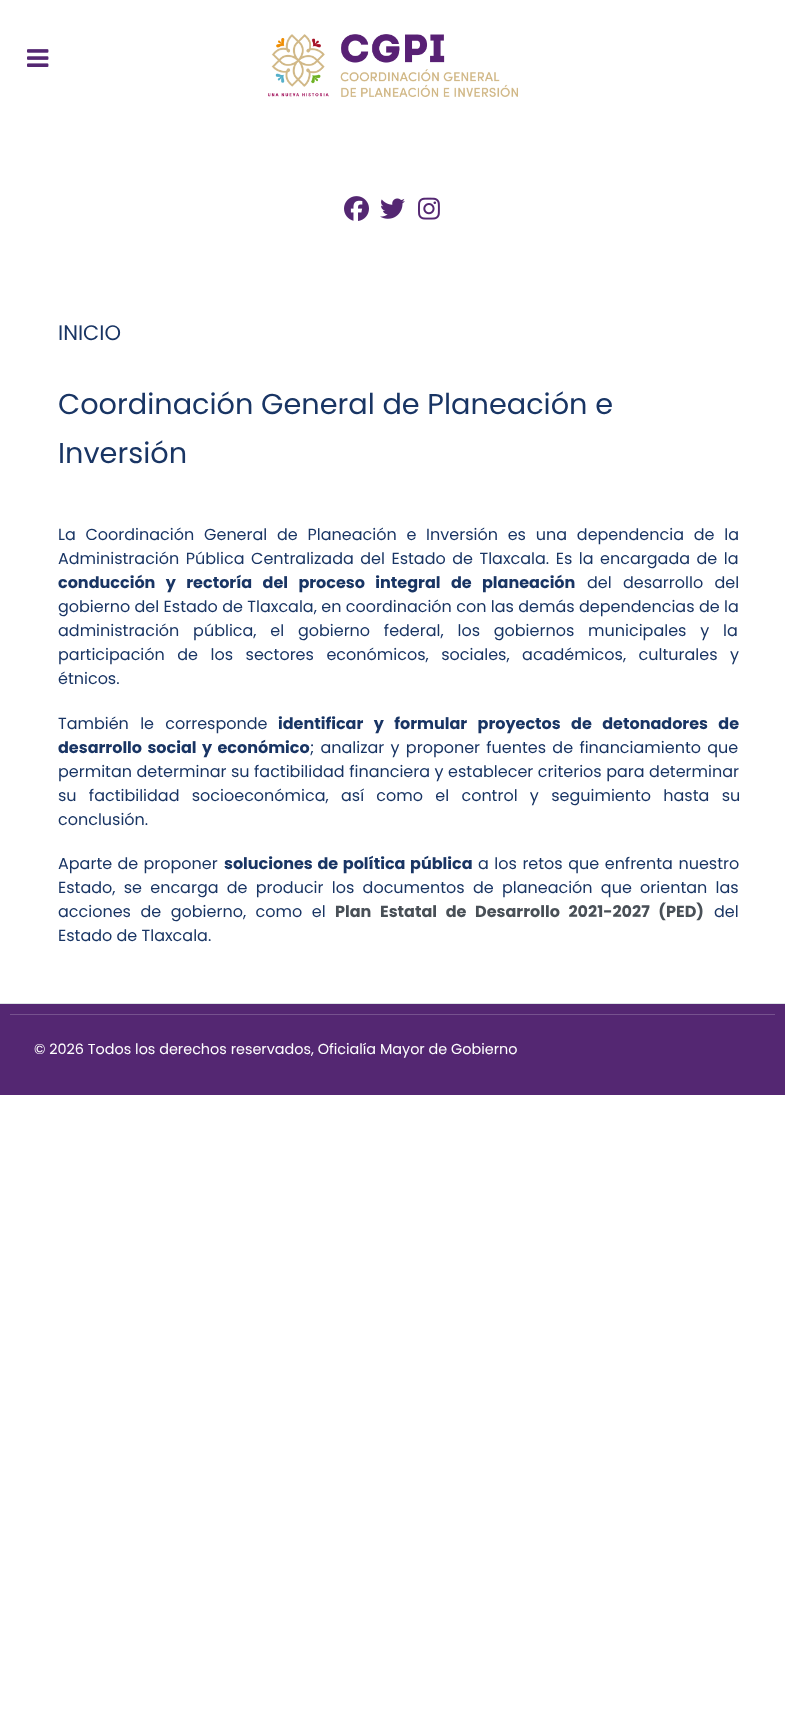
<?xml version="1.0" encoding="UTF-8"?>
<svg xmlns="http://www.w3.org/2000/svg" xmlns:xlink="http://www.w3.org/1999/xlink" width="785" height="1730">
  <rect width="100%" height="100%" fill="#ffffff" />
  <image x="27" y="49" width="22" height="18" xlink:href="image1.png" />
  <image x="268" y="34" width="250" height="63" xlink:href="image2.png" />
  <image x="344" y="196" width="25" height="25" xlink:href="image3.png" />
  <image x="380" y="198" width="25" height="21" xlink:href="image4.png" />
  <image x="418" y="197" width="22" height="23" xlink:href="image5.png" />
  <rect y="1004" width="785" height="91" fill="#542772" />
  <rect y="1003" width="785" height="1" fill="#dee2e6" />
  <rect x="10" y="1014" width="765" height="1" fill="#76528e" />
  <text x="58" y="340" style="font-family: Poppins; font-size: 21px; fill: #193564">INICIO</text>
  <text x="58" y="414" style="font-family: Poppins; font-size: 28.75px; fill: #193564">Coordinación General de Planeación e</text>
  <text x="58" y="463" style="font-family: Poppins; font-size: 28.75px; fill: #193564">Inversión</text>
  <text x="58" y="540" word-spacing="5.5" style="font-family: Poppins; font-size: 16px; fill: #193564">La Coordinación General de Planeación e Inversión es una dependencia de la</text>
  <text x="58" y="564" word-spacing="2.25" style="font-family: Poppins; font-size: 16px; fill: #193564">Administración Pública Centralizada del Estado de Tlaxcala. Es la encargada de la</text>
  <text x="58" y="588" word-spacing="7" style="font-family: Poppins; font-size: 16px; font-weight: bold; fill: #193564">conducción y rectoría del proceso integral de planeación</text>
  <text x="587" y="588" word-spacing="7" style="font-family: Poppins; font-size: 16px; fill: #193564">del desarrollo del</text>
  <text x="58" y="612" word-spacing="0.1" style="font-family: Poppins; font-size: 16px; fill: #193564">gobierno del Estado de Tlaxcala, en coordinación con las demás dependencias de la</text>
  <text x="58" y="636" word-spacing="9.5" style="font-family: Poppins; font-size: 16px; fill: #193564">administración pública, el gobierno federal, los gobiernos municipales y la</text>
  <text x="58" y="660" word-spacing="8.25" style="font-family: Poppins; font-size: 16px; fill: #193564">participación de los sectores económicos, sociales, académicos, culturales y</text>
  <text x="58" y="684" style="font-family: Poppins; font-size: 16px; fill: #193564">étnicos.</text>
  <text x="58" y="729" word-spacing="7" style="font-family: Poppins; font-size: 16px; fill: #193564">También le corresponde</text>
  <text x="278" y="729" word-spacing="7" style="font-family: Poppins; font-size: 16px; font-weight: bold; fill: #193564">identificar y formular proyectos de detonadores de</text>
  <text x="58" y="753" word-spacing="2" style="font-family: Poppins; font-size: 16px; font-weight: bold; fill: #193564">desarrollo social y económico</text>
  <text x="310" y="753" word-spacing="2" style="font-family: Poppins; font-size: 16px; fill: #193564">; analizar y proponer fuentes de financiamiento que</text>
  <text x="58" y="777" word-spacing="0.25" style="font-family: Poppins; font-size: 16px; fill: #193564">permitan determinar su factibilidad financiera y establecer criterios para determinar</text>
  <text x="58" y="801" word-spacing="8" style="font-family: Poppins; font-size: 16px; fill: #193564">su factibilidad socioeconómica, así como el control y seguimiento hasta su</text>
  <text x="58" y="825" style="font-family: Poppins; font-size: 16px; fill: #193564">conclusión.</text>
  <text x="58" y="869" word-spacing="1" style="font-family: Poppins; font-size: 16px; fill: #193564">Aparte de proponer</text>
  <text x="224" y="869" word-spacing="1.25" style="font-family: Poppins; font-size: 16px; font-weight: bold; fill: #193564">soluciones de política pública</text>
  <text x="478" y="869" word-spacing="1.25" style="font-family: Poppins; font-size: 16px; fill: #193564">a los retos que enfrenta nuestro</text>
  <text x="58" y="893" word-spacing="4" style="font-family: Poppins; font-size: 16px; fill: #193564">Estado, se encarga de producir los documentos de planeación que orientan las</text>
  <text x="58" y="917" word-spacing="5.25" style="font-family: Poppins; font-size: 16px; fill: #193564">acciones de gobierno, como el</text>
  <text x="335" y="917" word-spacing="5.25" style="font-family: Poppins; font-size: 16px; font-weight: bold; fill: #495057">Plan Estatal de Desarrollo 2021-2027 (PED)</text>
  <text x="714" y="917" style="font-family: Poppins; font-size: 16px; fill: #193564">del</text>
  <text x="58" y="941" style="font-family: Poppins; font-size: 16px; fill: #193564">Estado de Tlaxcala.</text>
  <text x="34" y="1054" style="font-family: Poppins; font-size: 14.4px; fill: #ffffff">© 2026 Todos los derechos reservados, Oficialía Mayor de Gobierno</text>
</svg>
